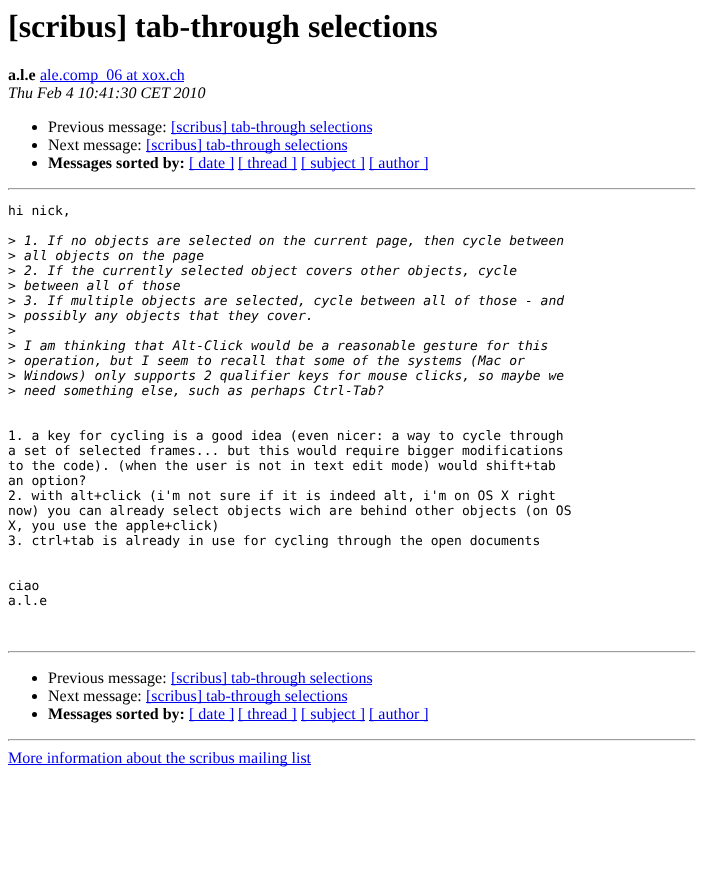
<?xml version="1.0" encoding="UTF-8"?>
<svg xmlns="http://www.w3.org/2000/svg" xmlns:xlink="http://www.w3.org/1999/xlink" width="704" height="895">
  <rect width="100%" height="100%" fill="#ffffff" />
  <rect x="40" y="81" width="144" height="1" fill="#0000ee" />
  <circle cx="34.5" cy="127.5" r="2.5" fill="#000000" />
  <rect x="171" y="133" width="201" height="1" fill="#0000ee" />
  <circle cx="34.5" cy="145.5" r="2.5" fill="#000000" />
  <rect x="146" y="151" width="201" height="1" fill="#0000ee" />
  <circle cx="34.5" cy="163.5" r="2.5" fill="#000000" />
  <rect x="189" y="169" width="45" height="1" fill="#0000ee" />
  <rect x="238" y="169" width="59" height="1" fill="#0000ee" />
  <rect x="301" y="169" width="64" height="1" fill="#0000ee" />
  <rect x="369" y="169" width="59" height="1" fill="#0000ee" />
  <rect x="8" y="188" width="688" height="1" fill="#9f9f9f" />
  <rect x="695" y="188" width="1" height="2" fill="#eeeeee" />
  <rect x="8" y="189" width="688" height="1" fill="#eeeeee" />
  <rect x="8" y="188" width="1" height="2" fill="#9f9f9f" />
  <rect x="8" y="651" width="688" height="1" fill="#9f9f9f" />
  <rect x="695" y="651" width="1" height="2" fill="#eeeeee" />
  <rect x="8" y="652" width="688" height="1" fill="#eeeeee" />
  <rect x="8" y="651" width="1" height="2" fill="#9f9f9f" />
  <circle cx="34.5" cy="678.5" r="2.5" fill="#000000" />
  <rect x="171" y="684" width="201" height="1" fill="#0000ee" />
  <circle cx="34.5" cy="696.5" r="2.5" fill="#000000" />
  <rect x="146" y="702" width="201" height="1" fill="#0000ee" />
  <circle cx="34.5" cy="714.5" r="2.5" fill="#000000" />
  <rect x="189" y="720" width="45" height="1" fill="#0000ee" />
  <rect x="238" y="720" width="59" height="1" fill="#0000ee" />
  <rect x="301" y="720" width="64" height="1" fill="#0000ee" />
  <rect x="369" y="720" width="59" height="1" fill="#0000ee" />
  <rect x="8" y="739" width="688" height="1" fill="#9f9f9f" />
  <rect x="695" y="739" width="1" height="2" fill="#eeeeee" />
  <rect x="8" y="740" width="688" height="1" fill="#eeeeee" />
  <rect x="8" y="739" width="1" height="2" fill="#9f9f9f" />
  <rect x="8" y="764" width="303" height="1" fill="#0000ee" />
  <text x="8" y="37" style="font-family: Liberation Serif; font-size: 32px; font-weight: bold; fill: #000000">[scribus] tab-through selections</text>
  <text x="8" y="80" style="font-family: Liberation Serif; font-size: 16px; font-weight: bold; fill: #000000">a.l.e</text>
  <text x="40" y="80" style="font-family: Liberation Serif; font-size: 16px; fill: #0000ee">ale.comp_06 at xox.ch</text>
  <text x="8" y="98" style="font-family: Liberation Serif; font-size: 16px; font-style: italic; fill: #000000">Thu Feb 4 10:41:30 CET 2010</text>
  <text x="48" y="132" style="font-family: Liberation Serif; font-size: 16px; fill: #000000">Previous message:</text>
  <text x="171" y="132" style="font-family: Liberation Serif; font-size: 16px; fill: #0000ee">[scribus] tab-through selections</text>
  <text x="48" y="150" style="font-family: Liberation Serif; font-size: 16px; fill: #000000">Next message:</text>
  <text x="146" y="150" style="font-family: Liberation Serif; font-size: 16px; fill: #0000ee">[scribus] tab-through selections</text>
  <text x="48" y="168" style="font-family: Liberation Serif; font-size: 16px; font-weight: bold; fill: #000000">Messages sorted by:</text>
  <text x="189" y="168" style="font-family: Liberation Serif; font-size: 16px; fill: #0000ee">[ date ]</text>
  <text x="238" y="168" style="font-family: Liberation Serif; font-size: 16px; fill: #0000ee">[ thread ]</text>
  <text x="301" y="168" style="font-family: Liberation Serif; font-size: 16px; fill: #0000ee">[ subject ]</text>
  <text x="369" y="168" style="font-family: Liberation Serif; font-size: 16px; fill: #0000ee">[ author ]</text>
  <text x="8" y="215" style="font-family: DejaVu Sans Mono; font-size: 13px; fill: #000000">hi nick,</text>
  <text x="8" y="245" style="font-family: DejaVu Sans Mono; font-size: 13px; fill: #000000">&gt;</text>
  <text x="24" y="245" style="font-family: DejaVu Sans Mono; font-size: 13px; font-style: italic; fill: #000000">1. If no objects are selected on the current page, then cycle between</text>
  <text x="8" y="260" style="font-family: DejaVu Sans Mono; font-size: 13px; fill: #000000">&gt;</text>
  <text x="24" y="260" style="font-family: DejaVu Sans Mono; font-size: 13px; font-style: italic; fill: #000000">all objects on the page</text>
  <text x="8" y="275" style="font-family: DejaVu Sans Mono; font-size: 13px; fill: #000000">&gt;</text>
  <text x="24" y="275" style="font-family: DejaVu Sans Mono; font-size: 13px; font-style: italic; fill: #000000">2. If the currently selected object covers other objects, cycle</text>
  <text x="8" y="290" style="font-family: DejaVu Sans Mono; font-size: 13px; fill: #000000">&gt;</text>
  <text x="24" y="290" style="font-family: DejaVu Sans Mono; font-size: 13px; font-style: italic; fill: #000000">between all of those</text>
  <text x="8" y="305" style="font-family: DejaVu Sans Mono; font-size: 13px; fill: #000000">&gt;</text>
  <text x="24" y="305" style="font-family: DejaVu Sans Mono; font-size: 13px; font-style: italic; fill: #000000">3. If multiple objects are selected, cycle between all of those - and</text>
  <text x="8" y="320" style="font-family: DejaVu Sans Mono; font-size: 13px; fill: #000000">&gt;</text>
  <text x="24" y="320" style="font-family: DejaVu Sans Mono; font-size: 13px; font-style: italic; fill: #000000">possibly any objects that they cover.</text>
  <text x="8" y="335" style="font-family: DejaVu Sans Mono; font-size: 13px; fill: #000000">&gt;</text>
  <text x="8" y="350" style="font-family: DejaVu Sans Mono; font-size: 13px; fill: #000000">&gt;</text>
  <text x="24" y="350" style="font-family: DejaVu Sans Mono; font-size: 13px; font-style: italic; fill: #000000">I am thinking that Alt-Click would be a reasonable gesture for this</text>
  <text x="8" y="365" style="font-family: DejaVu Sans Mono; font-size: 13px; fill: #000000">&gt;</text>
  <text x="24" y="365" style="font-family: DejaVu Sans Mono; font-size: 13px; font-style: italic; fill: #000000">operation, but I seem to recall that some of the systems (Mac or</text>
  <text x="8" y="380" style="font-family: DejaVu Sans Mono; font-size: 13px; fill: #000000">&gt;</text>
  <text x="24" y="380" style="font-family: DejaVu Sans Mono; font-size: 13px; font-style: italic; fill: #000000">Windows) only supports 2 qualifier keys for mouse clicks, so maybe we</text>
  <text x="8" y="395" style="font-family: DejaVu Sans Mono; font-size: 13px; fill: #000000">&gt;</text>
  <text x="24" y="395" style="font-family: DejaVu Sans Mono; font-size: 13px; font-style: italic; fill: #000000">need something else, such as perhaps Ctrl-Tab?</text>
  <text x="8" y="440" style="font-family: DejaVu Sans Mono; font-size: 13px; fill: #000000">1. a key for cycling is a good idea (even nicer: a way to cycle through</text>
  <text x="8" y="455" style="font-family: DejaVu Sans Mono; font-size: 13px; fill: #000000">a set of selected frames... but this would require bigger modifications</text>
  <text x="8" y="470" style="font-family: DejaVu Sans Mono; font-size: 13px; fill: #000000">to the code). (when the user is not in text edit mode) would shift+tab</text>
  <text x="8" y="485" style="font-family: DejaVu Sans Mono; font-size: 13px; fill: #000000">an option?</text>
  <text x="8" y="500" style="font-family: DejaVu Sans Mono; font-size: 13px; fill: #000000">2. with alt+click (i'm not sure if it is indeed alt, i'm on OS X right</text>
  <text x="8" y="515" style="font-family: DejaVu Sans Mono; font-size: 13px; fill: #000000">now) you can already select objects wich are behind other objects (on OS</text>
  <text x="8" y="530" style="font-family: DejaVu Sans Mono; font-size: 13px; fill: #000000">X, you use the apple+click)</text>
  <text x="8" y="545" style="font-family: DejaVu Sans Mono; font-size: 13px; fill: #000000">3. ctrl+tab is already in use for cycling through the open documents</text>
  <text x="8" y="590" style="font-family: DejaVu Sans Mono; font-size: 13px; fill: #000000">ciao</text>
  <text x="8" y="605" style="font-family: DejaVu Sans Mono; font-size: 13px; fill: #000000">a.l.e</text>
  <text x="48" y="683" style="font-family: Liberation Serif; font-size: 16px; fill: #000000">Previous message:</text>
  <text x="171" y="683" style="font-family: Liberation Serif; font-size: 16px; fill: #0000ee">[scribus] tab-through selections</text>
  <text x="48" y="701" style="font-family: Liberation Serif; font-size: 16px; fill: #000000">Next message:</text>
  <text x="146" y="701" style="font-family: Liberation Serif; font-size: 16px; fill: #0000ee">[scribus] tab-through selections</text>
  <text x="48" y="719" style="font-family: Liberation Serif; font-size: 16px; font-weight: bold; fill: #000000">Messages sorted by:</text>
  <text x="189" y="719" style="font-family: Liberation Serif; font-size: 16px; fill: #0000ee">[ date ]</text>
  <text x="238" y="719" style="font-family: Liberation Serif; font-size: 16px; fill: #0000ee">[ thread ]</text>
  <text x="301" y="719" style="font-family: Liberation Serif; font-size: 16px; fill: #0000ee">[ subject ]</text>
  <text x="369" y="719" style="font-family: Liberation Serif; font-size: 16px; fill: #0000ee">[ author ]</text>
  <text x="8" y="763" style="font-family: Liberation Serif; font-size: 16px; fill: #0000ee">More information about the scribus mailing list</text>
</svg>
